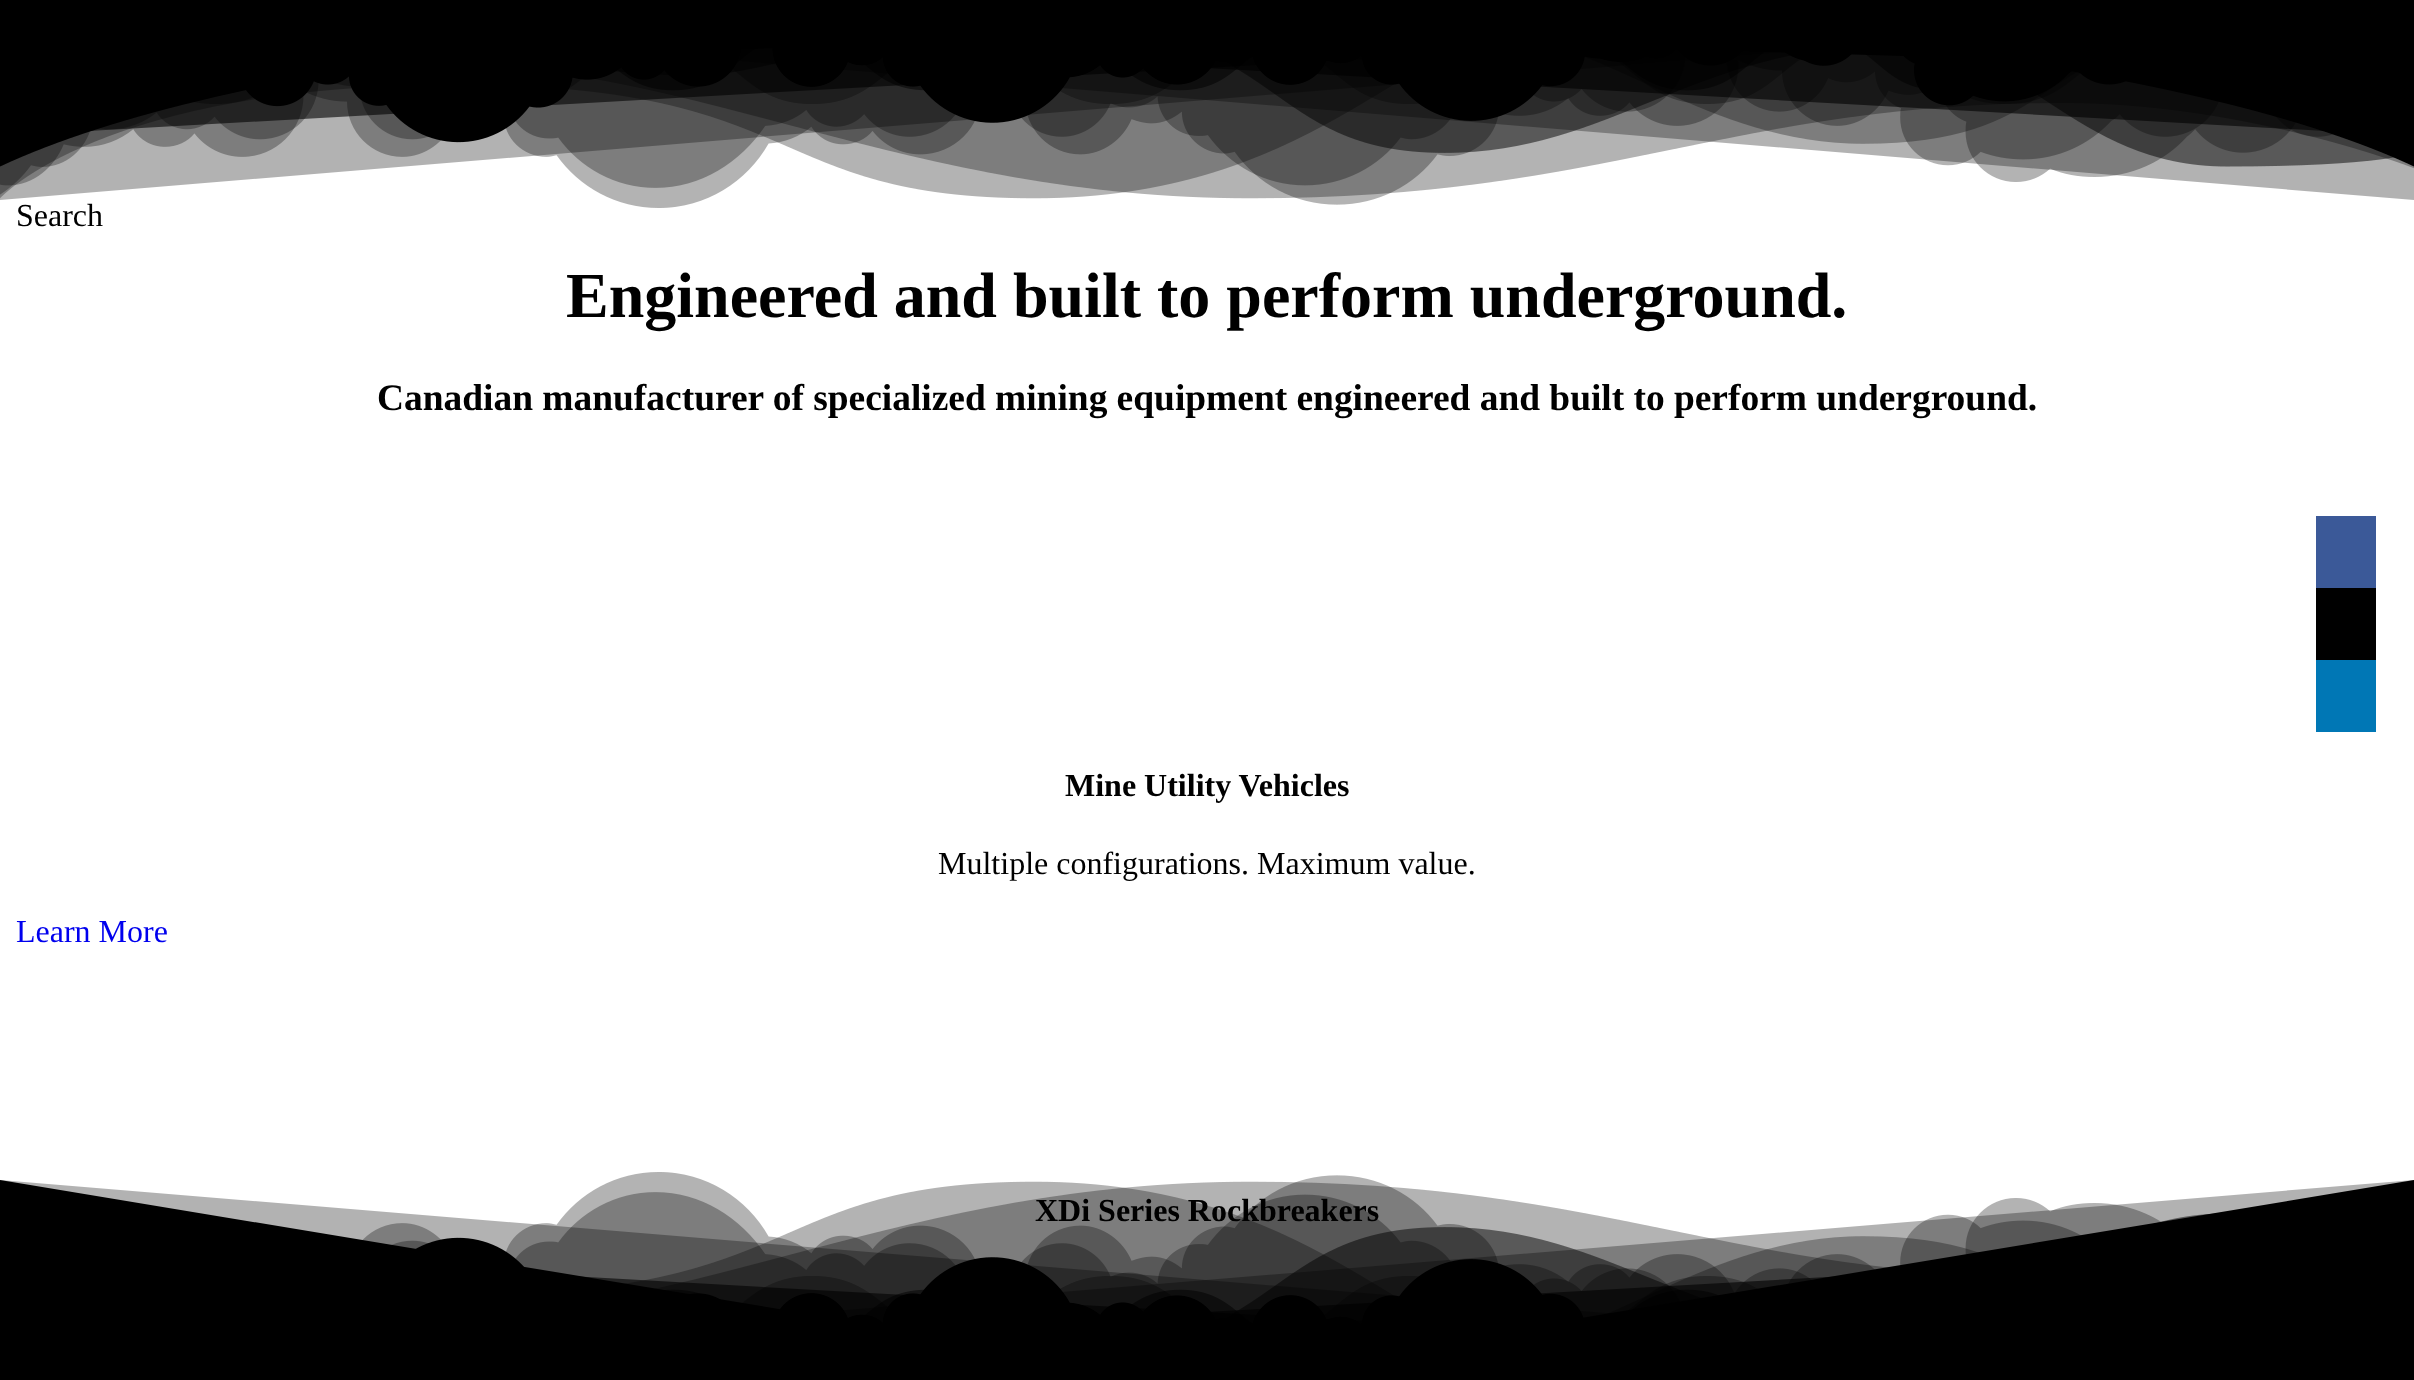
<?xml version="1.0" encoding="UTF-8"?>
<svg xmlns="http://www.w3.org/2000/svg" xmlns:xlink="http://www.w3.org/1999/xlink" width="2414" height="1380">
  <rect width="100%" height="100%" fill="#ffffff" />
  <image x="194" y="37" width="1887" height="67" xlink:href="image2.png" />
  <image x="664" y="1276" width="1094" height="67" xlink:href="image6.png" />
  <rect x="2316" y="516" width="60" height="72" fill="#3b5998" />
  <rect x="2316" y="588" width="60" height="72" fill="#000000" />
  <rect x="2316" y="660" width="60" height="72" fill="#0077b5" />
  <text x="16" y="226" style="font-family: Liberation Serif; font-size: 32px; fill: #000000">Search</text>
  <image x="0" y="35" width="2334" height="173" xlink:href="image1.png" />
  <path d="M 0 0 h 2414 v 200 z" fill="#000000" fill-opacity="0.3" />
  <path d="M 0 0 h 2414 v 136 z" fill="#000000" fill-opacity="0.6" />
  <path d="M 0 0 h 2414 v 71 z" fill="#000000" />
  <path d="M 0 200 l 2414 -200 l -2414 -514 z" fill="#000000" fill-opacity="0.3" />
  <path d="M 0 136 l 2414 -136 l -2414 -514 z" fill="#000000" fill-opacity="0.6" />
  <path d="M 0 71 l 2414 -71 l -2414 -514 z" fill="#000000" />
  <image x="0" y="48" width="2414" height="151" xlink:href="image3.png" />
  <text x="566" y="317" style="font-family: Liberation Serif; font-size: 64px; font-weight: bold; fill: #000000">Engineered and built to perform underground.</text>
  <text x="377" y="410" word-spacing="-0.1" style="font-family: Liberation Serif; font-size: 37.45px; font-weight: bold; fill: #000000">Canadian manufacturer of specialized mining equipment engineered and built to perform underground.</text>
  <text x="1065" y="796" style="font-family: Liberation Serif; font-size: 32px; font-weight: bold; fill: #000000">Mine Utility Vehicles</text>
  <text x="938" y="874" style="font-family: Liberation Serif; font-size: 32px; fill: #000000">Multiple configurations. Maximum value.</text>
  <text x="16" y="942" style="font-family: Liberation Serif; font-size: 32px; fill: #0000ee">Learn More</text>
  <text x="1035" y="1221" style="font-family: Liberation Serif; font-size: 32px; font-weight: bold; fill: #000000">XDi Series Rockbreakers</text>
  <image x="362" y="1172" width="1800" height="173" xlink:href="image4.png" />
  <path d="M 0 1380 h 2414 v -200 z" fill="#000000" fill-opacity="0.3" />
  <path d="M 0 1380 h 2414 v -136 z" fill="#000000" fill-opacity="0.6" />
  <path d="M 0 1380 h 2414 v -71 z" fill="#000000" />
  <path d="M 0 1180 l 2414 200 l -2414 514 z" fill="#000000" fill-opacity="0.3" />
  <path d="M 0 1244 l 2414 136 l -2414 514 z" fill="#000000" fill-opacity="0.6" />
  <path d="M 0 1309 l 2414 71 l -2414 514 z" fill="#000000" />
  <image x="623" y="1181" width="1592" height="151" xlink:href="image5.png" />
  <path d="M 0 1380 v -200 l 1207 200 l 1207 -200 v 200" fill="#000000" />
</svg>
